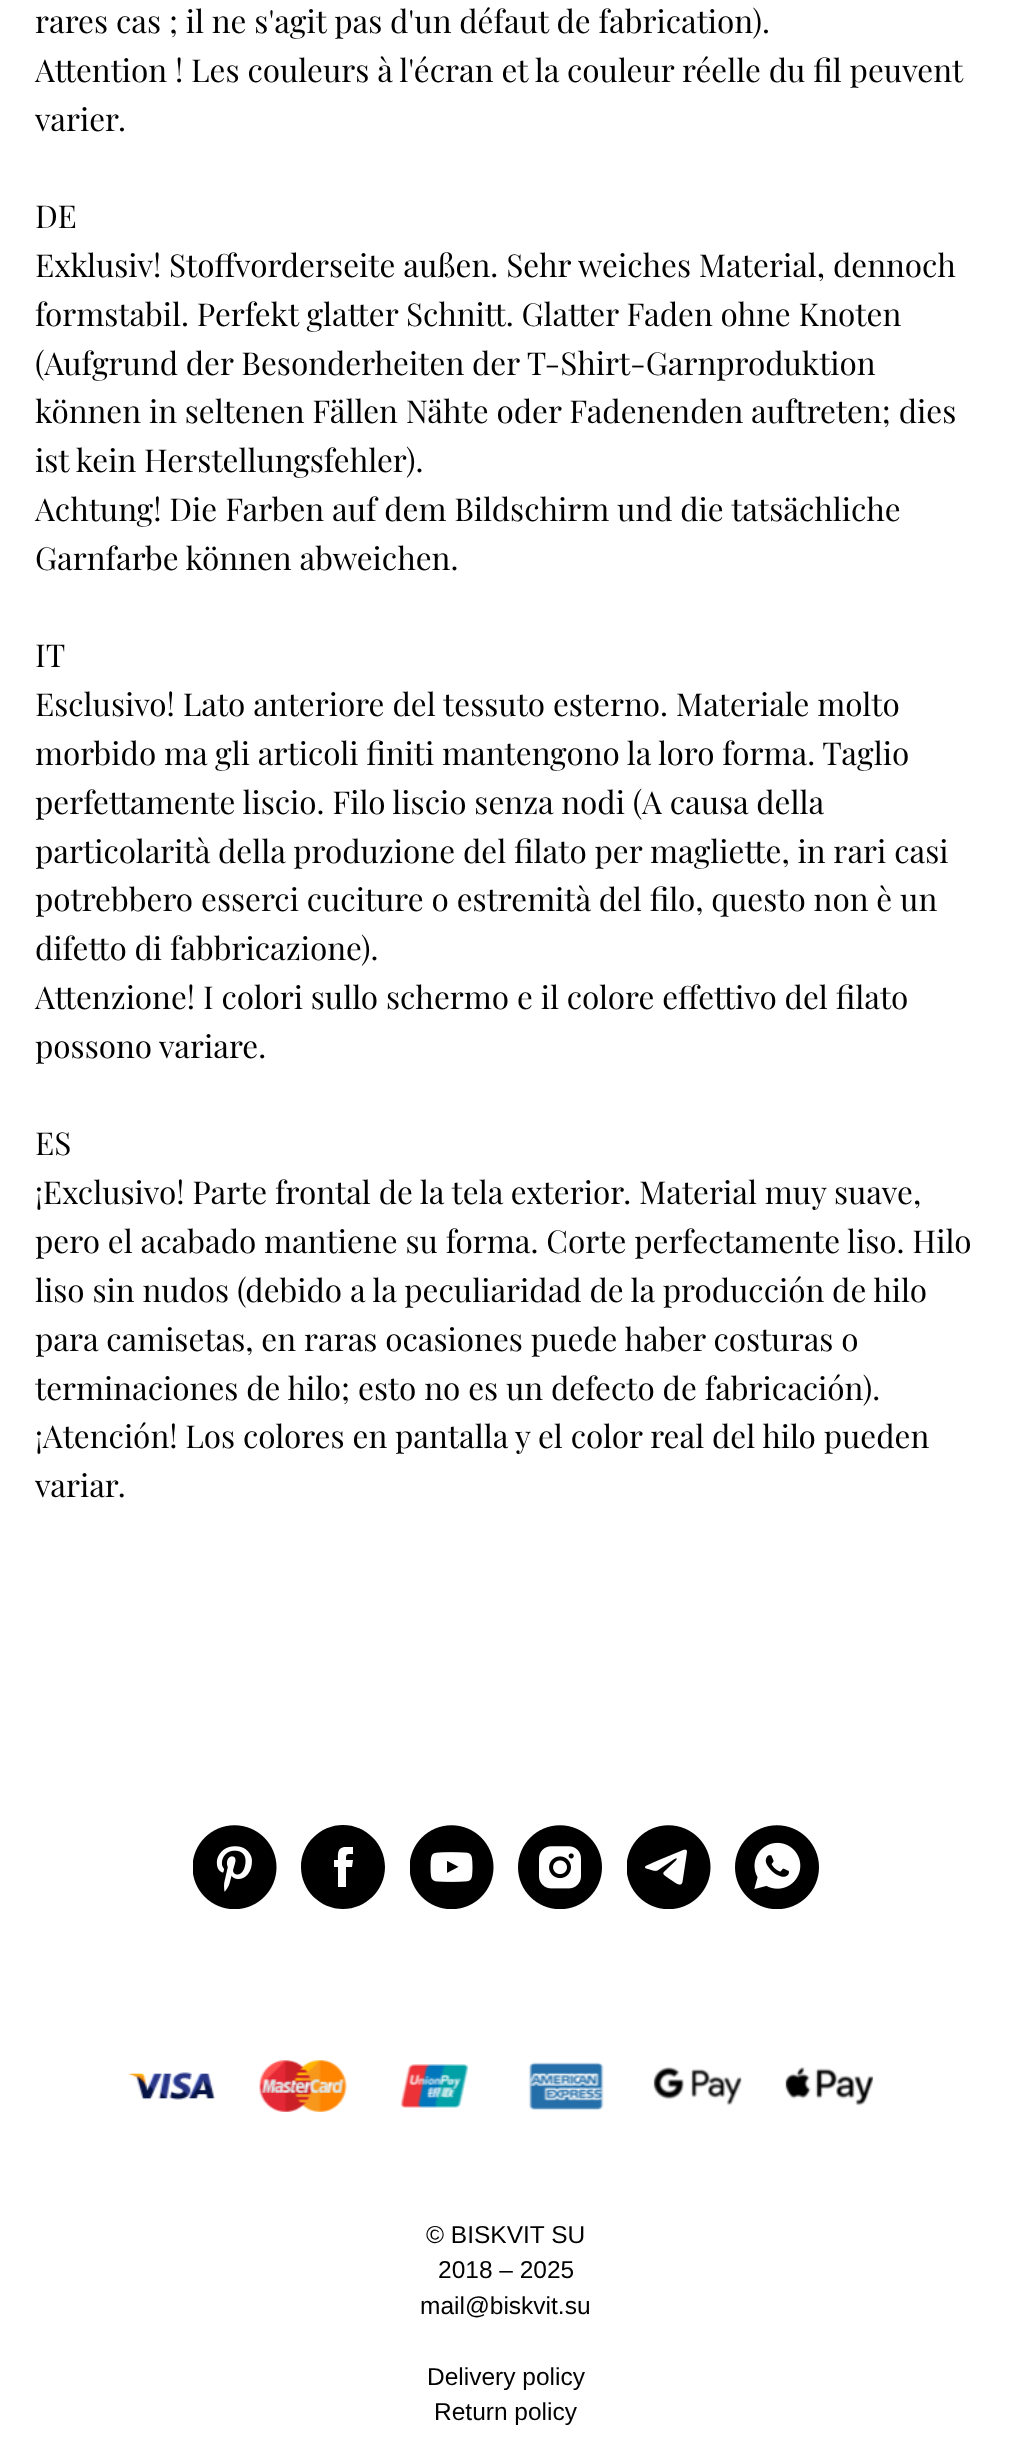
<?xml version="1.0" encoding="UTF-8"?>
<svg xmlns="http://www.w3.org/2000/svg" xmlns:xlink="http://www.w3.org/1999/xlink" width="1011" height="2438">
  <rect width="100%" height="100%" fill="#ffffff" />
  <image x="193" y="1825" width="84" height="84" xlink:href="image1.png" />
  <path d="M 343 1909 c 23 0 42 -19 42 -42 c 0 -23 -19 -42 -42 -42 c -23 0 -42 19 -42 42 c 0 23 19 42 42 42 z m 3 -62 c -9 0 -8 7 -8 13 h -4 v 7 h 4 v 20 h 8 v -20 h 6 l 1 -7 h -7 c 0 -6 0 -6 7 -6 v -7 z" fill="#000000" fill-rule="evenodd" />
  <image x="410" y="1825" width="84" height="84" xlink:href="image2.png" />
  <image x="518" y="1825" width="84" height="84" xlink:href="image3.png" />
  <image x="627" y="1825" width="84" height="84" xlink:href="image4.png" />
  <image x="735" y="1825" width="84" height="84" xlink:href="image5.png" />
  <image x="127" y="2060" width="747" height="52" xlink:href="image6.png" />
  <text x="35" y="33" style="font-family: Playfair Display; font-size: 31.5px; fill: #000000">rares cas ; il ne s'agit pas d'un défaut de fabrication).</text>
  <text x="35" y="82" style="font-family: Playfair Display; font-size: 31.5px; fill: #000000">Attention ! Les couleurs à l'écran et la couleur réelle du fil peuvent</text>
  <text x="35" y="131" style="font-family: Playfair Display; font-size: 31.5px; fill: #000000">varier.</text>
  <text x="35" y="228" style="font-family: Playfair Display; font-size: 31.5px; fill: #000000">DE</text>
  <text x="35" y="277" style="font-family: Playfair Display; font-size: 31.5px; fill: #000000">Exklusiv! Stoffvorderseite außen. Sehr weiches Material, dennoch</text>
  <text x="35" y="326" style="font-family: Playfair Display; font-size: 31.5px; fill: #000000">formstabil. Perfekt glatter Schnitt. Glatter Faden ohne Knoten</text>
  <text x="35" y="375" style="font-family: Playfair Display; font-size: 31.5px; fill: #000000">(Aufgrund der Besonderheiten der T-Shirt-Garnproduktion</text>
  <text x="35" y="423" style="font-family: Playfair Display; font-size: 31.5px; fill: #000000">können in seltenen Fällen Nähte oder Fadenenden auftreten; dies</text>
  <text x="35" y="472" style="font-family: Playfair Display; font-size: 31.5px; fill: #000000">ist kein Herstellungsfehler).</text>
  <text x="35" y="521" style="font-family: Playfair Display; font-size: 31.5px; fill: #000000">Achtung! Die Farben auf dem Bildschirm und die tatsächliche</text>
  <text x="35" y="570" style="font-family: Playfair Display; font-size: 31.5px; fill: #000000">Garnfarbe können abweichen.</text>
  <text x="35" y="667" style="font-family: Playfair Display; font-size: 31.5px; fill: #000000">IT</text>
  <text x="35" y="716" style="font-family: Playfair Display; font-size: 31.5px; fill: #000000">Esclusivo! Lato anteriore del tessuto esterno. Materiale molto</text>
  <text x="35" y="765" style="font-family: Playfair Display; font-size: 31.5px; fill: #000000">morbido ma gli articoli finiti mantengono la loro forma. Taglio</text>
  <text x="35" y="814" style="font-family: Playfair Display; font-size: 31.5px; fill: #000000">perfettamente liscio. Filo liscio senza nodi (A causa della</text>
  <text x="35" y="863" style="font-family: Playfair Display; font-size: 31.5px; fill: #000000">particolarità della produzione del filato per magliette, in rari casi</text>
  <text x="35" y="911" style="font-family: Playfair Display; font-size: 31.5px; fill: #000000">potrebbero esserci cuciture o estremità del filo, questo non è un</text>
  <text x="35" y="960" style="font-family: Playfair Display; font-size: 31.5px; fill: #000000">difetto di fabbricazione).</text>
  <text x="35" y="1009" style="font-family: Playfair Display; font-size: 31.5px; fill: #000000">Attenzione! I colori sullo schermo e il colore effettivo del filato</text>
  <text x="35" y="1058" style="font-family: Playfair Display; font-size: 31.5px; fill: #000000">possono variare.</text>
  <text x="35" y="1155" style="font-family: Playfair Display; font-size: 31.5px; fill: #000000">ES</text>
  <text x="35" y="1204" style="font-family: Playfair Display; font-size: 31.5px; fill: #000000">¡Exclusivo! Parte frontal de la tela exterior. Material muy suave,</text>
  <text x="35" y="1253" style="font-family: Playfair Display; font-size: 31.5px; fill: #000000">pero el acabado mantiene su forma. Corte perfectamente liso. Hilo</text>
  <text x="35" y="1302" style="font-family: Playfair Display; font-size: 31.5px; fill: #000000">liso sin nudos (debido a la peculiaridad de la producción de hilo</text>
  <text x="35" y="1351" style="font-family: Playfair Display; font-size: 31.5px; fill: #000000">para camisetas, en raras ocasiones puede haber costuras o</text>
  <text x="35" y="1400" style="font-family: Playfair Display; font-size: 31.5px; fill: #000000">terminaciones de hilo; esto no es un defecto de fabricación).</text>
  <text x="35" y="1448" style="font-family: Playfair Display; font-size: 31.5px; fill: #000000">¡Atención! Los colores en pantalla y el color real del hilo pueden</text>
  <text x="35" y="1497" style="font-family: Playfair Display; font-size: 31.5px; fill: #000000">variar.</text>
  <text x="426" y="2243" style="font-family: Liberation Sans; font-size: 24.5px; fill: #000000">© BISKVIT SU</text>
  <text x="438" y="2278" style="font-family: Liberation Sans; font-size: 24.5px; fill: #000000">2018 – 2025</text>
  <text x="420" y="2314" style="font-family: Liberation Sans; font-size: 24.5px; fill: #000000">mail@biskvit.su</text>
  <text x="427" y="2385" style="font-family: Liberation Sans; font-size: 24.5px; fill: #000000">Delivery policy</text>
  <text x="434" y="2420" style="font-family: Liberation Sans; font-size: 24.5px; fill: #000000">Return policy</text>
</svg>
